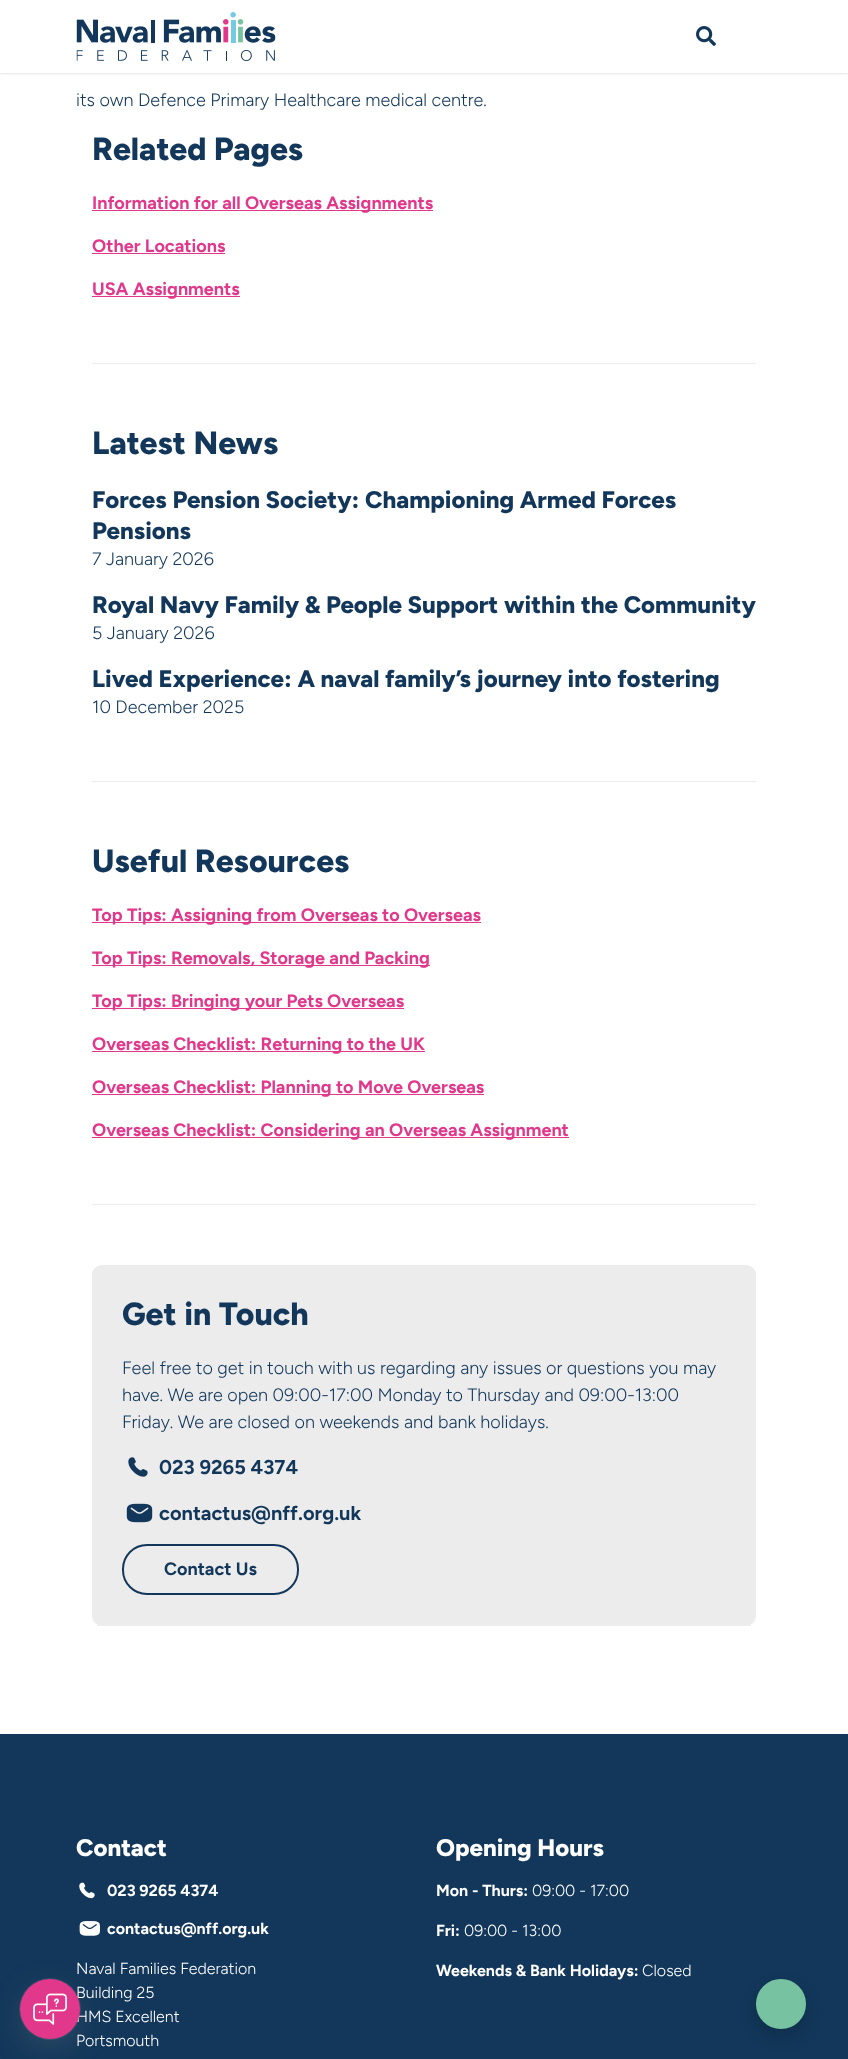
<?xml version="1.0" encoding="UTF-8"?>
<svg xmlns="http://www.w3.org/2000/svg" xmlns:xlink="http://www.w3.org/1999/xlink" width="848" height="2059">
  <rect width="100%" height="100%" fill="#ffffff" />
  <rect y="1" width="848" height="73" fill="#000000" fill-opacity="0.1" filter="blur(1px)" />
  <rect width="848" height="73" fill="#ffffff" />
  <image x="76" y="12" width="200" height="49" xlink:href="image2.png" />
  <image x="696" y="26" width="20" height="20" xlink:href="image3.png" />
  <rect x="92" y="363" width="664" height="1" fill="#ececec" />
  <rect x="92" y="210" width="341" height="1" fill="#e1388c" />
  <rect x="92" y="253" width="133" height="1" fill="#e1388c" />
  <rect x="92" y="296" width="148" height="1" fill="#e1388c" />
  <rect x="92" y="781" width="664" height="1" fill="#ececec" />
  <rect x="92" y="1204" width="664" height="1" fill="#ececec" />
  <rect x="92" y="922" width="389" height="1" fill="#e1388c" />
  <rect x="92" y="965" width="338" height="1" fill="#e1388c" />
  <rect x="92" y="1008" width="312" height="1" fill="#e1388c" />
  <rect x="92" y="1051" width="333" height="1" fill="#e1388c" />
  <rect x="92" y="1094" width="392" height="1" fill="#e1388c" />
  <rect x="92" y="1137" width="477" height="1" fill="#e1388c" />
  <rect x="92" y="1265" width="664" height="361" rx="10" fill="#ececec" />
  <rect x="97" y="1625" width="654" height="1" fill="#ececec" />
  <image x="128" y="1457" width="20" height="20" xlink:href="image4.png" />
  <image x="126" y="1503" width="27" height="20" xlink:href="image5.png" />
  <rect x="123" y="1545" width="175" height="49" rx="24" fill="none" stroke="#12375a" stroke-width="2" />
  <rect y="1734" width="848" height="325" fill="#12375a" />
  <image x="79" y="1882" width="16" height="17" xlink:href="image6.png" />
  <image x="79" y="1921" width="21" height="15" xlink:href="image7.png" />
  <rect x="756" y="1987" width="50" height="50" rx="25" fill="#000000" fill-opacity="0.15" filter="blur(8px)" />
  <circle cx="781" cy="2004" r="24" fill="#76c2a1" stroke="#76c2a1" stroke-width="2" />
  <text x="76" y="106" style="font-family: Figtree; font-size: 18px; font-weight: 300; fill: #12375a">its own Defence Primary Healthcare medical centre.</text>
  <text x="92" y="160" style="font-family: Figtree; font-size: 32px; font-weight: 800; fill: #12375a">Related Pages</text>
  <text x="92" y="209" style="font-family: Figtree; font-size: 18px; font-weight: bold; fill: #e1388c">Information for all Overseas Assignments</text>
  <text x="92" y="252" style="font-family: Figtree; font-size: 18px; font-weight: bold; fill: #e1388c">Other Locations</text>
  <text x="92" y="295" style="font-family: Figtree; font-size: 18px; font-weight: bold; fill: #e1388c">USA Assignments</text>
  <text x="92" y="454" style="font-family: Figtree; font-size: 32px; font-weight: 800; fill: #12375a">Latest News</text>
  <text x="92" y="508" style="font-family: Figtree; font-size: 24px; font-weight: 800; fill: #12375a">Forces Pension Society: Championing Armed Forces</text>
  <text x="92" y="539" style="font-family: Figtree; font-size: 24px; font-weight: 800; fill: #12375a">Pensions</text>
  <text x="92" y="565" style="font-family: Figtree; font-size: 18px; font-weight: 300; fill: #12375a">7 January 2026</text>
  <text x="92" y="613" style="font-family: Figtree; font-size: 24px; font-weight: 800; fill: #12375a">Royal Navy Family &amp; People Support within the Community</text>
  <text x="92" y="639" style="font-family: Figtree; font-size: 18px; font-weight: 300; fill: #12375a">5 January 2026</text>
  <text x="92" y="687" style="font-family: Figtree; font-size: 24px; font-weight: 800; fill: #12375a">Lived Experience: A naval family’s journey into fostering</text>
  <text x="92" y="713" style="font-family: Figtree; font-size: 18px; font-weight: 300; fill: #12375a">10 December 2025</text>
  <text x="92" y="872" style="font-family: Figtree; font-size: 32px; font-weight: 800; fill: #12375a">Useful Resources</text>
  <text x="92" y="921" style="font-family: Figtree; font-size: 18px; font-weight: bold; fill: #e1388c">Top Tips: Assigning from Overseas to Overseas</text>
  <text x="92" y="964" style="font-family: Figtree; font-size: 18px; font-weight: bold; fill: #e1388c">Top Tips: Removals, Storage and Packing</text>
  <text x="92" y="1007" style="font-family: Figtree; font-size: 18px; font-weight: bold; fill: #e1388c">Top Tips: Bringing your Pets Overseas</text>
  <text x="92" y="1050" style="font-family: Figtree; font-size: 18px; font-weight: bold; fill: #e1388c">Overseas Checklist: Returning to the UK</text>
  <text x="92" y="1093" style="font-family: Figtree; font-size: 18px; font-weight: bold; fill: #e1388c">Overseas Checklist: Planning to Move Overseas</text>
  <text x="92" y="1136" style="font-family: Figtree; font-size: 18px; font-weight: bold; fill: #e1388c">Overseas Checklist: Considering an Overseas Assignment</text>
  <text x="122" y="1325" style="font-family: Figtree; font-size: 32px; font-weight: 800; fill: #12375a">Get in Touch</text>
  <text x="122" y="1374" style="font-family: Figtree; font-size: 18px; font-weight: 300; fill: #12375a">Feel free to get in touch with us regarding any issues or questions you may</text>
  <text x="122" y="1401" style="font-family: Figtree; font-size: 18px; font-weight: 300; fill: #12375a">have. We are open 09:00-17:00 Monday to Thursday and 09:00-13:00</text>
  <text x="122" y="1428" style="font-family: Figtree; font-size: 18px; font-weight: 300; fill: #12375a">Friday. We are closed on weekends and bank holidays.</text>
  <text x="159" y="1474" style="font-family: Figtree; font-size: 20px; font-weight: bold; fill: #12375a">023 9265 4374</text>
  <text x="159" y="1520" style="font-family: Figtree; font-size: 20px; font-weight: bold; fill: #12375a">contactus@nff.org.uk</text>
  <text x="164" y="1575" style="font-family: Figtree; font-size: 18px; font-weight: bold; fill: #12375a">Contact Us</text>
  <text x="76" y="1856" style="font-family: Figtree; font-size: 24px; font-weight: 800; fill: #ffffff">Contact</text>
  <text x="107" y="1896" style="font-family: Figtree; font-size: 16px; font-weight: bold; fill: #ffffff">023 9265 4374</text>
  <text x="107" y="1934" style="font-family: Figtree; font-size: 16px; font-weight: bold; fill: #ffffff">contactus@nff.org.uk</text>
  <text x="76" y="1974" style="font-family: Figtree; font-size: 16px; font-weight: 300; fill: #ffffff">Naval Families Federation</text>
  <text x="76" y="1998" style="font-family: Figtree; font-size: 16px; font-weight: 300; fill: #ffffff">Building 25</text>
  <text x="76" y="2022" style="font-family: Figtree; font-size: 16px; font-weight: 300; fill: #ffffff">HMS Excellent</text>
  <text x="76" y="2046" style="font-family: Figtree; font-size: 16px; font-weight: 300; fill: #ffffff">Portsmouth</text>
  <circle cx="50" cy="2009" r="30.5" fill="none" stroke="#969696" stroke-opacity="0.2" />
  <rect x="20" y="1989" width="60" height="60" rx="30" fill="#969696" fill-opacity="0.2" filter="blur(15px)" />
  <circle cx="50" cy="2009" r="30" fill="#e1388c" />
  <image x="33" y="1993" width="34" height="32" xlink:href="image1.png" />
  <text x="436" y="1856" style="font-family: Figtree; font-size: 24px; font-weight: 800; fill: #ffffff">Opening Hours</text>
  <text x="436" y="1896" style="font-family: Figtree; font-size: 16px; font-weight: bold; fill: #ffffff">Mon - Thurs:</text>
  <text x="532" y="1896" style="font-family: Figtree; font-size: 16px; font-weight: 300; fill: #ffffff">09:00 - 17:00</text>
  <text x="436" y="1936" style="font-family: Figtree; font-size: 16px; font-weight: bold; fill: #ffffff">Fri:</text>
  <text x="464" y="1936" style="font-family: Figtree; font-size: 16px; font-weight: 300; fill: #ffffff">09:00 - 13:00</text>
  <text x="436" y="1976" style="font-family: Figtree; font-size: 16px; font-weight: bold; fill: #ffffff">Weekends &amp; Bank Holidays:</text>
  <text x="642" y="1976" style="font-family: Figtree; font-size: 16px; font-weight: 300; fill: #ffffff">Closed</text>
</svg>
